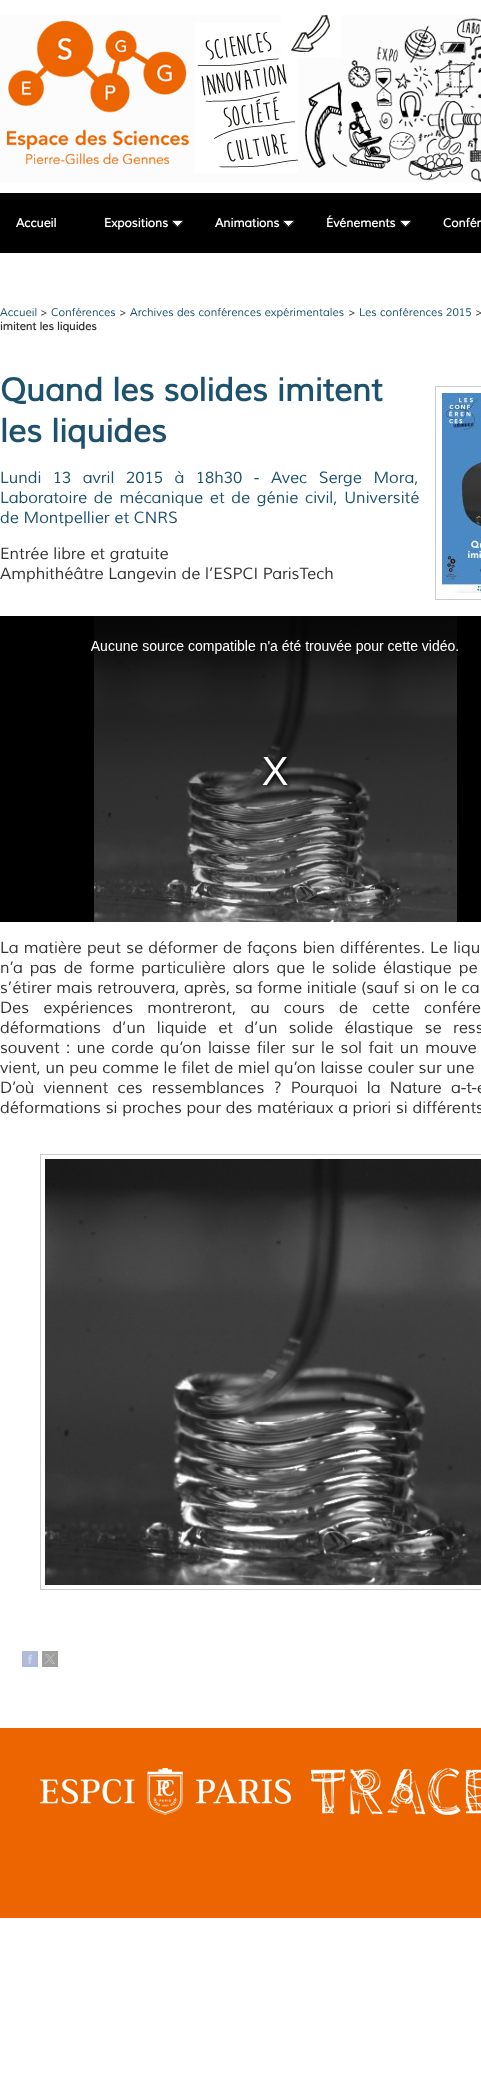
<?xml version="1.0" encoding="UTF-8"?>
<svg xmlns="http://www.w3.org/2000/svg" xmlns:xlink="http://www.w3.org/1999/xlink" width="481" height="2083">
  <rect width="100%" height="100%" fill="#ffffff" />
  <image x="0" y="15" width="481" height="167" xlink:href="image1.png" />
  <rect y="193" width="481" height="60" fill="#000000" />
  <image x="172" y="220" width="11" height="7" xlink:href="image2.png" />
  <image x="283" y="220" width="11" height="7" xlink:href="image2.png" />
  <image x="400" y="220" width="11" height="7" xlink:href="image2.png" />
  <rect x="435.5" y="386.5" width="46" height="213" fill="none" stroke="#cccccc" />
  <image x="442" y="393" width="39" height="200" xlink:href="image3.png" />
  <image x="0" y="616" width="481" height="306" xlink:href="image4.png" />
  <rect x="40.5" y="1154.5" width="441" height="435" fill="none" stroke="#cccccc" />
  <image x="45" y="1159" width="436" height="426" xlink:href="image5.png" />
  <image x="22" y="1651" width="16" height="16" xlink:href="image6.png" />
  <image x="42" y="1651" width="16" height="16" xlink:href="image7.png" />
  <rect y="1728" width="481" height="190" fill="#ec6501" />
  <image x="40" y="1768" width="251" height="47" xlink:href="image8.png" />
  <image x="311" y="1768" width="170" height="47" xlink:href="image9.png" />
  <text x="16" y="227" style="font-family: Muli; font-size: 12px; font-weight: bold; font-style: italic; fill: #ffffff">Accueil</text>
  <text x="104" y="227" style="font-family: Muli; font-size: 12px; font-weight: bold; font-style: italic; fill: #ffffff">Expositions</text>
  <text x="215" y="227" style="font-family: Muli; font-size: 12px; font-weight: bold; font-style: italic; fill: #ffffff">Animations</text>
  <text x="326" y="227" style="font-family: Muli; font-size: 12px; font-weight: bold; font-style: italic; fill: #ffffff">Événements</text>
  <text x="443" y="227" style="font-family: Muli; font-size: 12px; font-weight: bold; font-style: italic; fill: #ffffff">Confér</text>
  <text x="0" y="316" style="font-family: Muli; font-size: 11px; font-style: italic; fill: #1e526c">Accueil</text>
  <text x="40" y="316" style="font-family: Muli; font-size: 11px; font-style: italic; fill: #333333">&gt;</text>
  <text x="51" y="316" style="font-family: Muli; font-size: 11px; font-style: italic; fill: #1e526c">Conférences</text>
  <text x="119" y="316" style="font-family: Muli; font-size: 11px; font-style: italic; fill: #333333">&gt;</text>
  <text x="130" y="316" style="font-family: Muli; font-size: 11px; font-style: italic; fill: #1e526c">Archives des conférences expérimentales</text>
  <text x="348" y="316" style="font-family: Muli; font-size: 11px; font-style: italic; fill: #333333">&gt;</text>
  <text x="359" y="316" style="font-family: Muli; font-size: 11px; font-style: italic; fill: #1e526c">Les conférences 2015</text>
  <text x="475" y="316" style="font-family: Muli; font-size: 11px; font-style: italic; fill: #333333">&gt;</text>
  <text x="0" y="330" style="font-family: Muli; font-size: 11px; font-weight: bold; font-style: italic; fill: #333333">imitent les liquides</text>
  <text x="0" y="401" style="font-family: Muli; font-size: 32px; font-weight: bold; font-style: italic; fill: #1e526c">Quand les solides imitent</text>
  <text x="0" y="442" style="font-family: Muli; font-size: 32px; font-weight: bold; font-style: italic; fill: #1e526c">les liquides</text>
  <text x="0" y="483" word-spacing="6.75" style="font-family: Muli; font-size: 16px; font-style: italic; fill: #1e526c">Lundi 13 avril 2015 à 18h30 - Avec Serge Mora,</text>
  <text x="0" y="503" word-spacing="2" style="font-family: Muli; font-size: 16px; font-style: italic; fill: #1e526c">Laboratoire de mécanique et de génie civil, Université</text>
  <text x="0" y="523" style="font-family: Muli; font-size: 16px; font-style: italic; fill: #1e526c">de Montpellier et CNRS</text>
  <text x="0" y="559" style="font-family: Muli; font-size: 16px; font-style: italic; fill: #333333">Entrée libre et gratuite</text>
  <text x="0" y="579" style="font-family: Muli; font-size: 16px; font-style: italic; fill: #333333">Amphithéâtre Langevin de l’ESPCI ParisTech</text>
  <text x="0" y="953" word-spacing="0.5" style="font-family: Muli; font-size: 16px; font-style: italic; fill: #333333">La matière peut se déformer de façons bien différentes. Le liqu</text>
  <text x="0" y="973" word-spacing="2.25" style="font-family: Muli; font-size: 16px; font-style: italic; fill: #333333">n’a pas de forme particulière alors que le solide élastique pe</text>
  <text x="0" y="993" style="font-family: Muli; font-size: 16px; font-style: italic; fill: #333333">s’étirer mais retrouvera, après, sa forme initiale (sauf si on le ca</text>
  <text x="0" y="1013" word-spacing="9.5" style="font-family: Muli; font-size: 16px; font-style: italic; fill: #333333">Des expériences montreront, au cours de cette confére</text>
  <text x="0" y="1033" word-spacing="6.75" style="font-family: Muli; font-size: 16px; font-style: italic; fill: #333333">déformations d’un liquide et d’un solide élastique se ress</text>
  <text x="0" y="1053" word-spacing="1.75" style="font-family: Muli; font-size: 16px; font-style: italic; fill: #333333">souvent : une corde qu’on laisse filer sur le sol fait un mouve</text>
  <text x="0" y="1073" style="font-family: Muli; font-size: 16px; font-style: italic; fill: #333333">vient, un peu comme le filet de miel qu’on laisse couler sur une</text>
  <text x="0" y="1093" word-spacing="4.5" style="font-family: Muli; font-size: 16px; font-style: italic; fill: #333333">D’où viennent ces ressemblances ? Pourquoi la Nature a-t-e</text>
  <text x="0" y="1113" style="font-family: Muli; font-size: 16px; font-style: italic; fill: #333333">déformations si proches pour des matériaux a priori si différents</text>
</svg>
